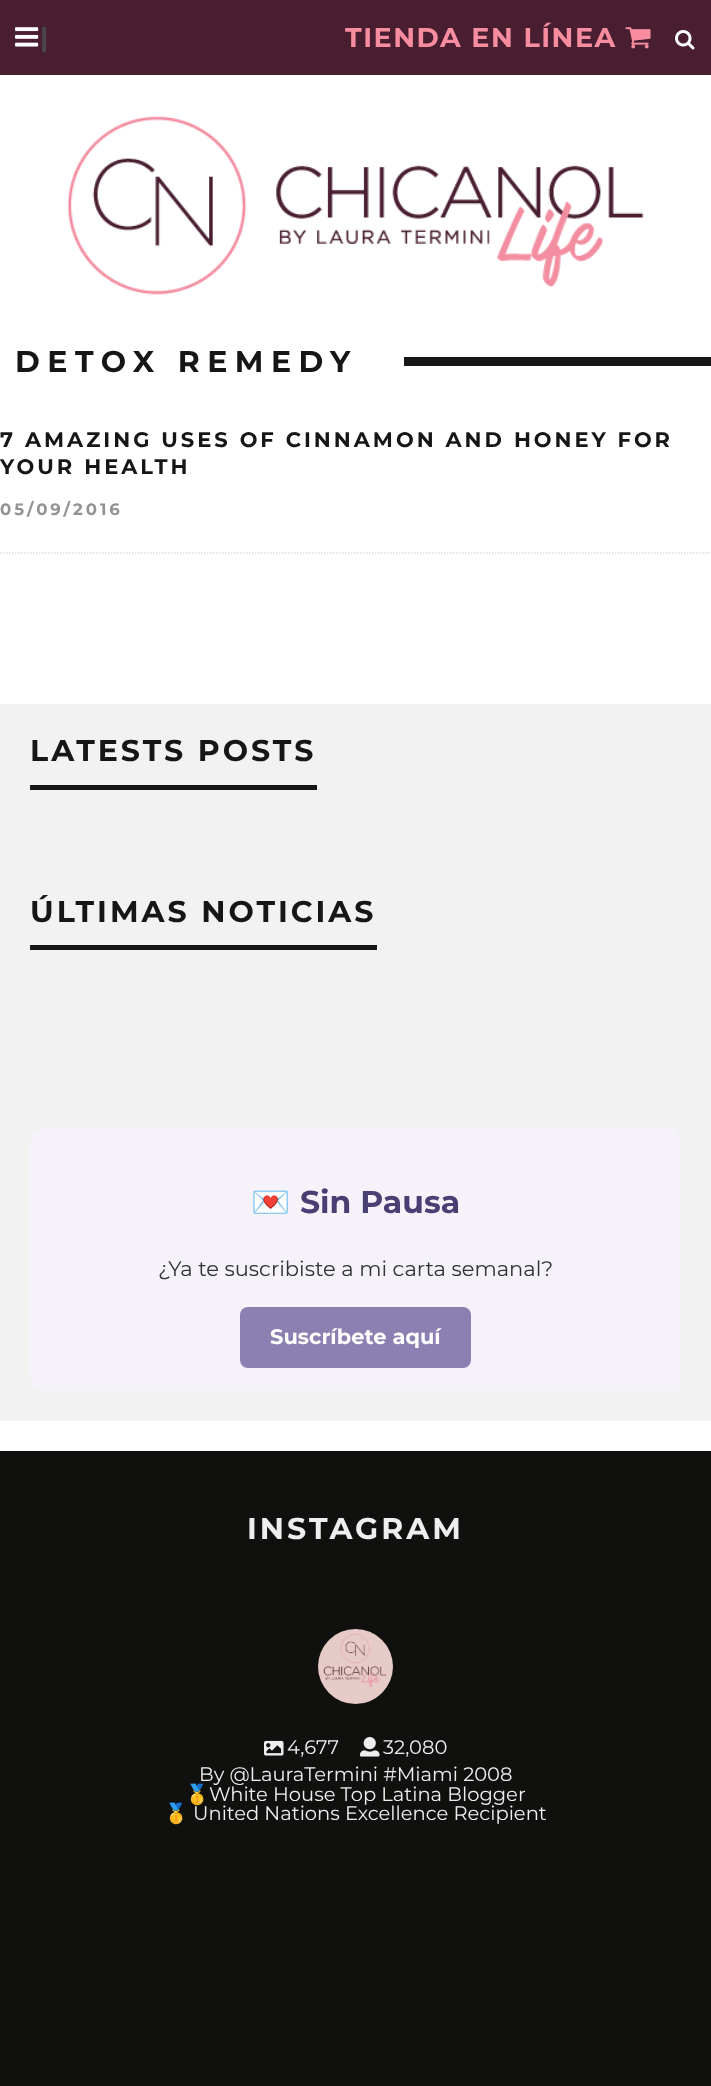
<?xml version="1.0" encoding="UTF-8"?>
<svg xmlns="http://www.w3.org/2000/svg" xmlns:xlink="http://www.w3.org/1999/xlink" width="711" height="2086">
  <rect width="100%" height="100%" fill="#ffffff" />
  <rect width="711" height="75" fill="#491e31" />
  <image x="15" y="27" width="24" height="20" xlink:href="image1.png" />
  <image x="625" y="27" width="26" height="22" xlink:href="image2.png" />
  <image x="675" y="30" width="20" height="20" xlink:href="image3.png" />
  <image x="67" y="116" width="577" height="179" xlink:href="image4.png" />
  <rect x="404" y="357" width="307" height="9" fill="#161616" />
  <path d="M 0 553 h 711" fill="none" stroke="#dddddd" stroke-width="1.5" stroke-dasharray="1.5 1.5" />
  <rect y="704" width="711" height="717" fill="#f2f2f2" />
  <rect x="30" y="785" width="287" height="5" fill="#161616" />
  <rect x="30" y="945" width="347" height="5" fill="#161616" />
  <rect x="30" y="1128" width="651" height="263" rx="15" fill="#f5f2fa" />
  <rect x="240" y="1307" width="231" height="61" rx="8" fill="#8c7fb1" />
  <rect y="1451" width="711" height="635" fill="#10100f" />
  <image x="318" y="1629" width="75" height="75" xlink:href="image5.png" />
  <image x="264" y="1740" width="20" height="16" xlink:href="image6.png" />
  <image x="360" y="1737" width="20" height="20" xlink:href="image7.png" />
  <text x="40" y="47" style="font-family: Montserrat; font-size: 27px; font-weight: bold; letter-spacing: 1.5px; fill: #484848">|</text>
  <text x="345" y="47" style="font-family: Montserrat; font-size: 27px; font-weight: bold; letter-spacing: 1.5px; fill: #f78d9f">TIENDA EN LÍNEA</text>
  <text x="15" y="372" style="font-family: Montserrat; font-size: 30px; font-weight: bold; letter-spacing: 7.5px; fill: #161616">DETOX REMEDY</text>
  <text x="0" y="447" style="font-family: Montserrat; font-size: 21px; font-weight: bold; letter-spacing: 3px; fill: #161616">7 AMAZING USES OF CINNAMON AND HONEY FOR</text>
  <text x="0" y="474" style="font-family: Montserrat; font-size: 21px; font-weight: bold; letter-spacing: 3px; fill: #161616">YOUR HEALTH</text>
  <text x="0" y="515" style="font-family: Montserrat; font-size: 16.5px; font-weight: bold; letter-spacing: 3px; fill: #939393">05/09/2016</text>
  <text x="30" y="761" style="font-family: Montserrat; font-size: 30px; font-weight: bold; letter-spacing: 3px; fill: #161616">LATESTS POSTS</text>
  <text x="30" y="922" style="font-family: Montserrat; font-size: 30px; font-weight: bold; letter-spacing: 3px; fill: #161616">ÚLTIMAS NOTICIAS</text>
  <text x="251" y="1213" style="font-family: Noto Color Emoji; font-size: 31.5px; font-weight: bold; fill: #4a3f72">💌</text>
  <text x="300" y="1213" style="font-family: Montserrat; font-size: 31.5px; font-weight: bold; fill: #4a3f72">Sin Pausa</text>
  <text x="158" y="1276" style="font-family: Montserrat; font-size: 21px; fill: #333333">¿Ya te suscribiste a mi carta semanal?</text>
  <text x="270" y="1344" style="font-family: Montserrat; font-size: 21px; font-weight: bold; fill: #ffffff">Suscríbete aquí</text>
  <text x="247" y="1539" style="font-family: Montserrat; font-size: 30px; font-weight: bold; letter-spacing: 3px; fill: #eeeeee">INSTAGRAM</text>
  <text x="287" y="1754" style="font-family: Montserrat; font-size: 19.5px; fill: #eeeeee">4,677</text>
  <text x="383" y="1754" style="font-family: Montserrat; font-size: 19.5px; fill: #eeeeee">32,080</text>
  <text x="199" y="1781" style="font-family: Montserrat; font-size: 19.5px; fill: #eeeeee">By @LauraTermini #Miami 2008</text>
  <text x="185" y="1801" style="font-family: Noto Color Emoji; font-size: 19.5px; fill: #eeeeee">🥇</text>
  <text x="209" y="1801" style="font-family: Montserrat; font-size: 19.5px; fill: #eeeeee">White House Top Latina Blogger</text>
  <text x="164" y="1820" style="font-family: Noto Color Emoji; font-size: 19.5px; fill: #eeeeee">🥇</text>
  <text x="193" y="1820" style="font-family: Montserrat; font-size: 19.5px; fill: #eeeeee">United Nations Excellence Recipient</text>
</svg>
